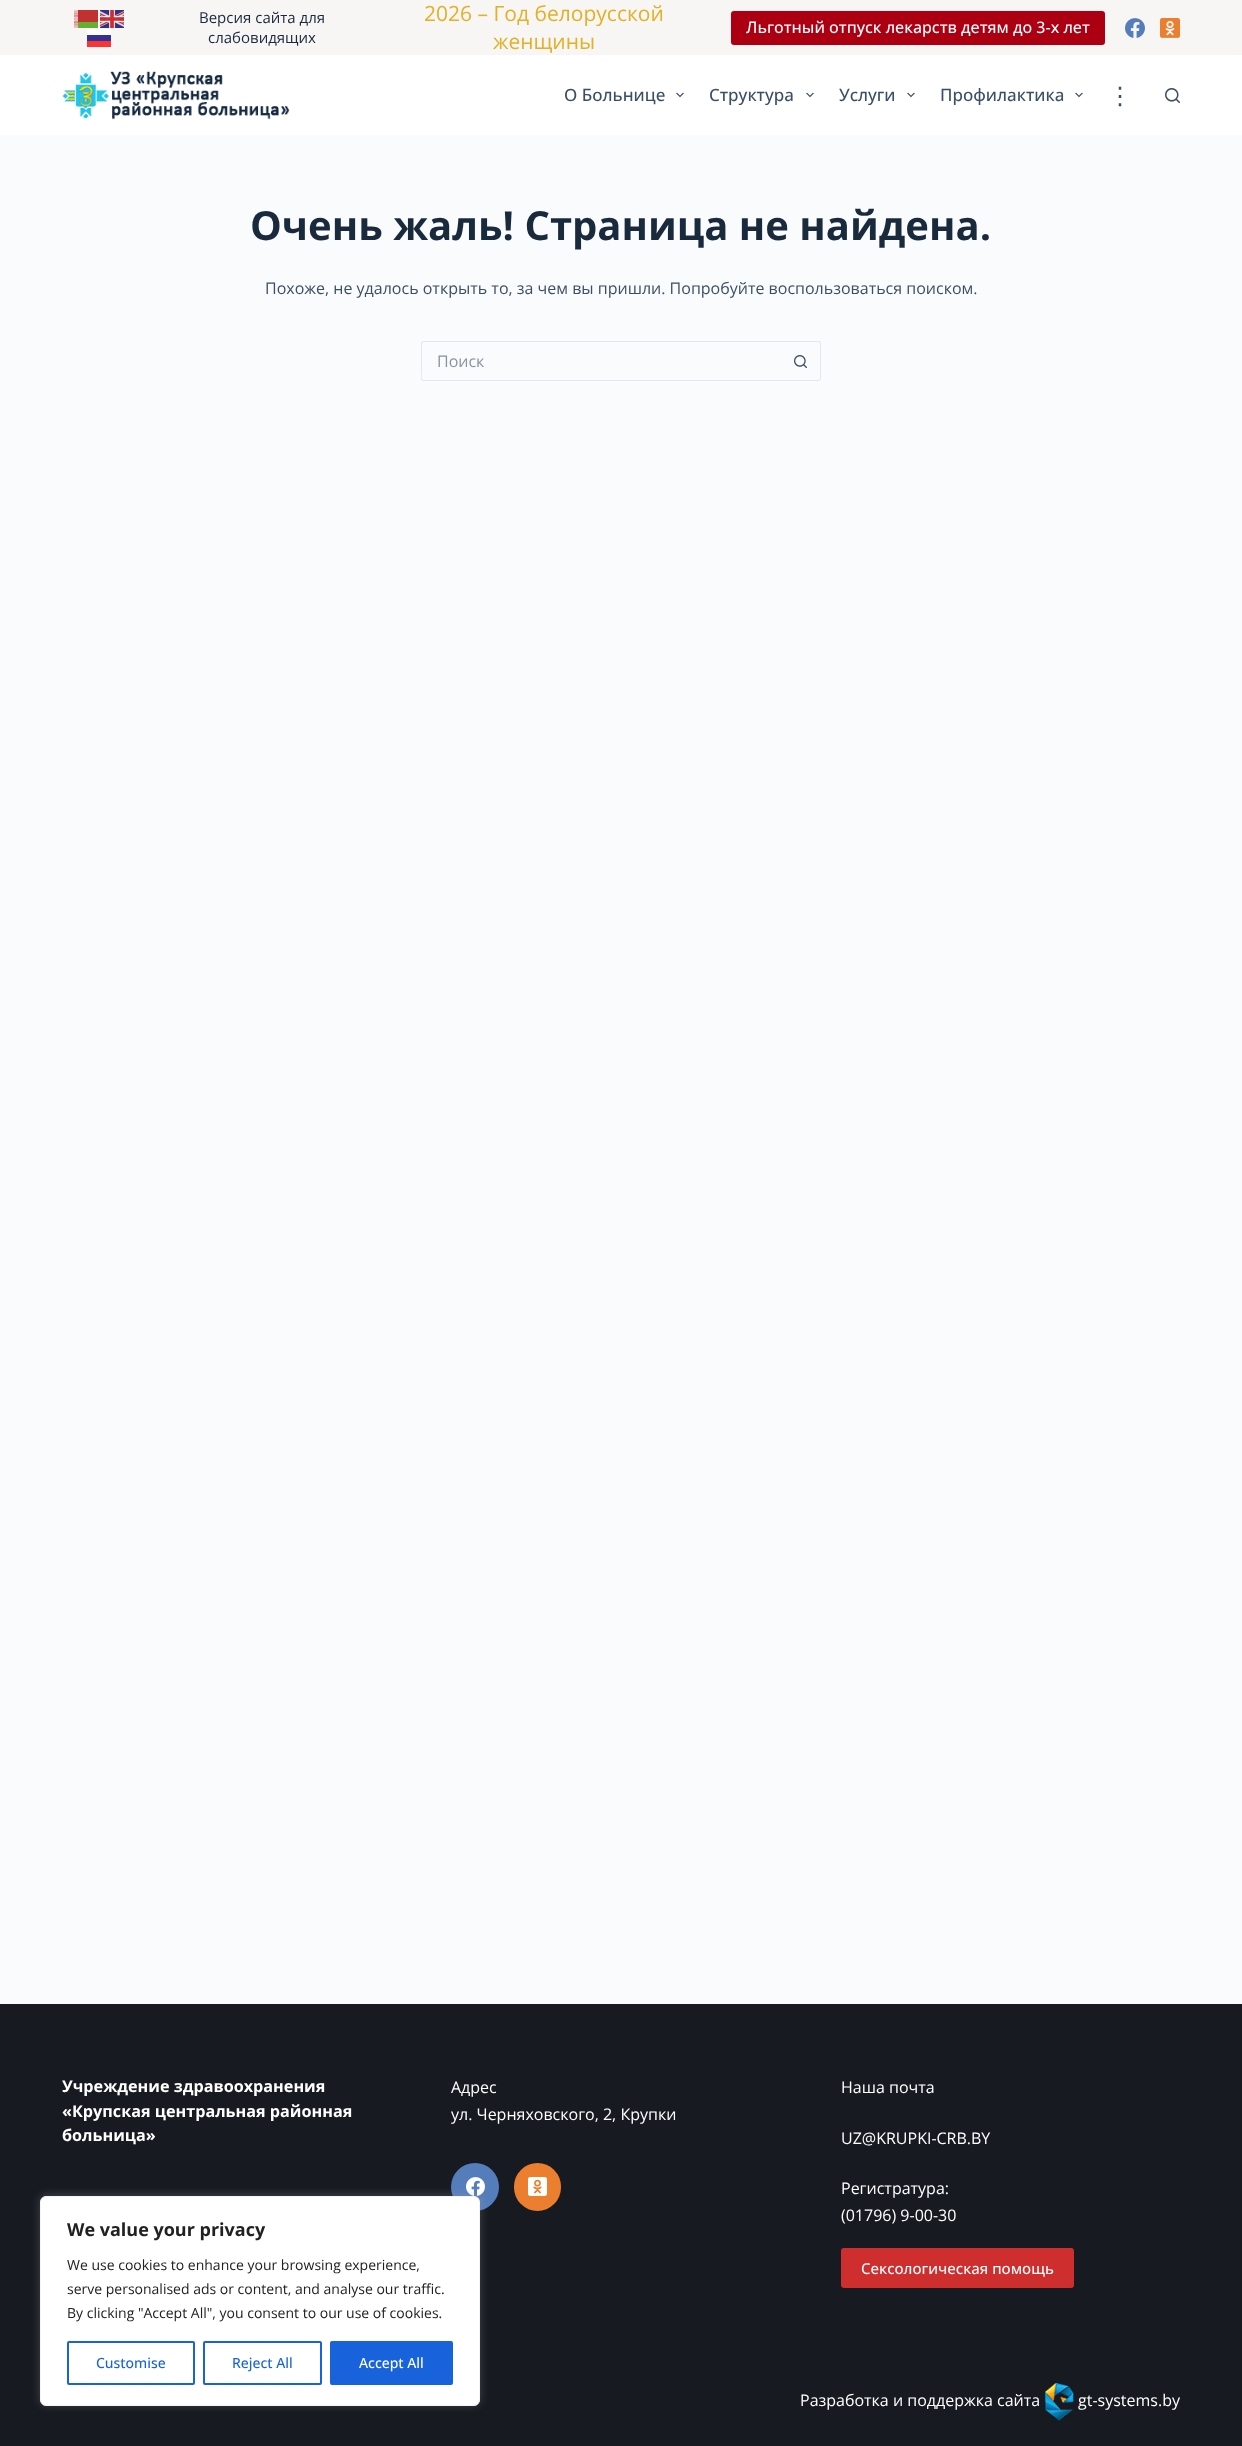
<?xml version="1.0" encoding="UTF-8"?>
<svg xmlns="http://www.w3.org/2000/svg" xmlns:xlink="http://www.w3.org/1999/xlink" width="1242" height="2446">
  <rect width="100%" height="100%" fill="#fafbfc" />
  <rect width="1242" height="55" fill="#f7f6f4" />
  <image x="74" y="10" width="24" height="18" xlink:href="image1.png" />
  <image x="100" y="10" width="24" height="18" xlink:href="image2.png" />
  <rect x="87" y="29" width="24" height="6" fill="#fdfdfd" />
  <rect x="87" y="35" width="24" height="6" fill="#323296" />
  <rect x="87" y="41" width="24" height="6" fill="#fd3232" />
  <rect x="731" y="11" width="374" height="34" rx="3" fill="#ac0012" />
  <image x="1125" y="18" width="20" height="20" xlink:href="image3.png" />
  <image x="1160" y="18" width="20" height="20" xlink:href="image4.png" />
  <rect y="55" width="1242" height="80" fill="#ffffff" />
  <image x="62" y="71" width="228" height="49" xlink:href="image5.png" />
  <image x="676" y="92" width="8" height="6" xlink:href="image6.png" />
  <image x="806" y="92" width="8" height="6" xlink:href="image6.png" />
  <image x="907" y="92" width="8" height="6" xlink:href="image6.png" />
  <image x="1075" y="92" width="8" height="6" xlink:href="image6.png" />
  <image x="1165" y="88" width="15" height="15" xlink:href="image7.png" />
  <path d="M 424 341 h 357 v 40 h -357 c -2 0 -3 -1 -3 -3 v -34 c 0 -2 1 -3 3 -3 z m 0 1 h 357 v 38 h -358 c -2 -2 -1 -7 -1 -8 v -28 l 1 -2 z" fill="#e1e8ed" fill-rule="evenodd" />
  <path d="M 781 341 h 37 c 2 0 3 1 3 3 v 34 c 0 2 -1 3 -3 3 h -37 z m 0 1 h 37 c 1 0 2 1 2 2 v 34 c 0 1 -1 2 -2 2 h -37 z" fill="#e1e8ed" fill-rule="evenodd" />
  <image x="794" y="355" width="13" height="13" xlink:href="image8.png" />
  <path d="M 793 358.5 c 1.5 -4 5.5 -6 9.5 -4.5" fill="none" stroke="#fafbfc" stroke-width="1.5" stroke-linecap="round" />
  <rect y="2004" width="1242" height="442" fill="#171a21" />
  <circle cx="475" cy="2187" r="24" fill="#557dbc" />
  <image x="466" y="2177" width="19" height="19" xlink:href="image9.png" />
  <rect x="514" y="2163" width="47" height="48" rx="23.5" fill="#eb7e2f" />
  <image x="528" y="2177" width="19" height="19" xlink:href="image10.png" />
  <rect x="841" y="2248" width="233" height="40" rx="3" fill="#cf2e2e" />
  <image x="1045" y="2383" width="29" height="38" xlink:href="image11.png" />
  <rect x="40" y="2195" width="440" height="210" rx="6" fill="#acabab" fill-opacity="0.3" filter="blur(5px)" />
  <rect x="40.5" y="2196.5" width="439" height="209" rx="5.5" fill="#ffffff" stroke="#f4f4f4" />
  <rect x="68" y="2342" width="126" height="42" rx="1" fill="none" stroke="#1863dc" stroke-width="2" />
  <rect x="204" y="2342" width="117" height="42" rx="1" fill="none" stroke="#1863dc" stroke-width="2" />
  <rect x="331" y="2342" width="121" height="42" rx="1" fill="#1863dc" stroke="#1863dc" stroke-width="2" />
  <text x="199" y="23" style="font-family: Open Sans; font-size: 15px; fill: #192a3d">Версия сайта для</text>
  <text x="208" y="43" style="font-family: Open Sans; font-size: 15px; fill: #192a3d">слабовидящих</text>
  <text x="424" y="21" style="font-family: Open Sans; font-size: 21px; fill: #e1b127">2026 – Год белорусской</text>
  <text x="493" y="49" style="font-family: Open Sans; font-size: 21px; fill: #e1b127">женщины</text>
  <text x="746" y="33" style="font-family: Open Sans; font-size: 16px; font-weight: 500; fill: #ffffff">Льготный отпуск лекарств детям до 3-х лет</text>
  <text x="564" y="101" style="font-family: Open Sans; font-size: 17px; font-weight: 500; fill: #3a4f66">О Больнице</text>
  <text x="709" y="101" style="font-family: Open Sans; font-size: 17px; font-weight: 500; fill: #3a4f66">Структура</text>
  <text x="839" y="101" style="font-family: Open Sans; font-size: 17px; font-weight: 500; fill: #3a4f66">Услуги</text>
  <text x="940" y="101" style="font-family: Open Sans; font-size: 17px; font-weight: 500; fill: #3a4f66">Профилактика</text>
  <text x="1108" y="104" style="font-family: DejaVu Sans; font-size: 24px; fill: #3a4f66">⋮</text>
  <text x="250" y="240" style="font-family: Open Sans; font-size: 40px; font-weight: bold; fill: #192a3d">Очень жаль! Страница не найдена.</text>
  <text x="265" y="294" style="font-family: Open Sans; font-size: 16px; fill: #3a4f66">Похоже, не удалось открыть то, за чем вы пришли. Попробуйте воспользоваться поиском.</text>
  <text x="437" y="367" style="font-family: Open Sans; font-size: 16px; fill: #8794a2">Поиск</text>
  <text x="62" y="2092" style="font-family: Open Sans; font-size: 16.2px; font-weight: bold; fill: #ffffff">Учреждение здравоохранения</text>
  <text x="62" y="2117" style="font-family: Open Sans; font-size: 16.2px; font-weight: bold; fill: #ffffff">«Крупская центральная районная</text>
  <text x="62" y="2141" style="font-family: Open Sans; font-size: 16.2px; font-weight: bold; fill: #ffffff">больница»</text>
  <text x="451" y="2093" style="font-family: Open Sans; font-size: 16px; fill: #ffffff">Адрес</text>
  <text x="451" y="2120" style="font-family: Open Sans; font-size: 16px; fill: #ffffff">ул. Черняховского, 2, Крупки</text>
  <text x="841" y="2093" style="font-family: Open Sans; font-size: 16px; fill: #ffffff">Наша почта</text>
  <text x="841" y="2144" style="font-family: Open Sans; font-size: 16px; fill: #ffffff">UZ@KRUPKI-CRB.BY</text>
  <text x="841" y="2194" style="font-family: Open Sans; font-size: 16px; fill: #ffffff">Регистратура:</text>
  <text x="841" y="2221" style="font-family: Open Sans; font-size: 16px; fill: #ffffff">(01796) 9-00-30</text>
  <text x="861" y="2274" style="font-family: Open Sans; font-size: 15px; font-weight: 500; fill: #ffffff">Сексологическая помощь</text>
  <text x="800" y="2406" style="font-family: Open Sans; font-size: 16px; fill: #ffffff">Разработка и поддержка сайта</text>
  <text x="1078" y="2406" style="font-family: Open Sans; font-size: 16px; fill: #ffffff">gt-systems.by</text>
  <text x="67" y="2236" style="font-family: Open Sans; font-size: 18px; font-weight: bold; fill: #212121">We value your privacy</text>
  <text x="67" y="2270" style="font-family: Open Sans; font-size: 14px; fill: #212121">We use cookies to enhance your browsing experience,</text>
  <text x="67" y="2294" style="font-family: Open Sans; font-size: 14px; fill: #212121">serve personalised ads or content, and analyse our traffic.</text>
  <text x="67" y="2318" style="font-family: Open Sans; font-size: 14px; fill: #212121">By clicking "Accept All", you consent to our use of cookies.</text>
  <text x="96" y="2368" style="font-family: Open Sans; font-size: 14px; font-weight: 500; fill: #1863dc">Customise</text>
  <text x="232" y="2368" style="font-family: Open Sans; font-size: 14px; font-weight: 500; fill: #1863dc">Reject All</text>
  <text x="359" y="2368" style="font-family: Open Sans; font-size: 14px; font-weight: 500; fill: #ffffff">Accept All</text>
</svg>
